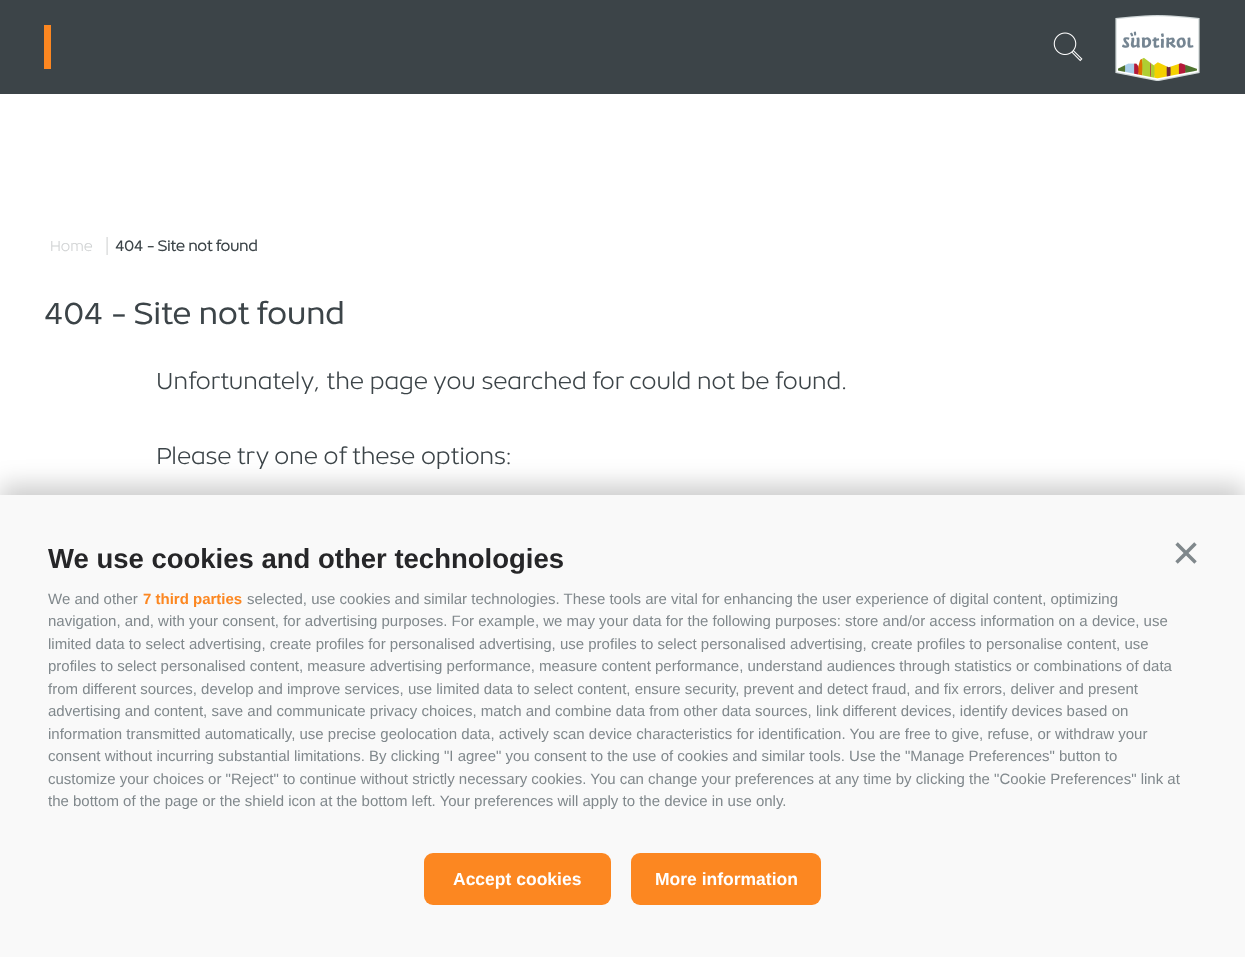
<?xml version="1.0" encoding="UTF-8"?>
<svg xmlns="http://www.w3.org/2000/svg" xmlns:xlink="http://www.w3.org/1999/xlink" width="1245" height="957">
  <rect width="100%" height="100%" fill="#ffffff" />
  <rect width="1245" height="94" fill="#3c4448" />
  <rect x="44" y="25" width="7" height="44" fill="#fc8721" />
  <image x="1053" y="32" width="30" height="30" xlink:href="image1.png" />
  <image x="1115" y="15" width="85" height="66" xlink:href="image2.png" />
  <rect y="485" width="1245" height="463" fill="#000000" fill-opacity="0.2" filter="blur(12.5px)" />
  <rect y="495" width="1245" height="462" fill="#f9f9f9" />
  <rect x="424" y="853" width="187" height="52" rx="9" fill="#fc8721" />
  <rect x="631" y="853" width="190" height="52" rx="9" fill="#fc8721" />
  <text x="50" y="251" style="font-family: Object; font-size: 15px; font-weight: 300; fill: #d0d2d3">Home</text>
  <text x="105" y="251" style="font-family: Object; font-size: 17.5px; font-weight: 300; fill: #d0d2d3">|</text>
  <text x="115" y="251" style="font-family: Object; font-size: 15px; font-weight: bold; fill: #3c4448">404 - Site not found</text>
  <text x="44" y="324" style="font-family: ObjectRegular; font-size: 31.25px; fill: #3c4448">404 - Site not found</text>
  <text x="156" y="389" style="font-family: Object; font-size: 23.75px; font-weight: 300; fill: #3c4448">Unfortunately, the page you searched for could not be found.</text>
  <text x="156" y="464" style="font-family: Object; font-size: 23.75px; font-weight: 300; fill: #3c4448">Please try one of these options:</text>
  <text x="48" y="568" style="font-family: Liberation Sans; font-size: 27.5px; font-weight: bold; fill: #262628">We use cookies and other technologies</text>
  <text x="1172" y="569" style="font-family: Liberation Sans; font-size: 48px; fill: #80888c">×</text>
  <text x="48" y="604" style="font-family: Liberation Sans; font-size: 15px; fill: #80888c">We and other</text>
  <text x="143" y="604" style="font-family: Liberation Sans; font-size: 15px; font-weight: bold; fill: #fc8721">7 third parties</text>
  <text x="247" y="604" style="font-family: Liberation Sans; font-size: 15px; fill: #80888c">selected, use cookies and similar technologies. These tools are vital for enhancing the user experience of digital content, optimizing</text>
  <text x="48" y="626" style="font-family: Liberation Sans; font-size: 15px; fill: #80888c">navigation, and, with your consent, for advertising purposes. For example, we may your data for the following purposes: store and/or access information on a device, use</text>
  <text x="48" y="649" style="font-family: Liberation Sans; font-size: 15px; fill: #80888c">limited data to select advertising, create profiles for personalised advertising, use profiles to select personalised advertising, create profiles to personalise content, use</text>
  <text x="48" y="671" style="font-family: Liberation Sans; font-size: 15px; fill: #80888c">profiles to select personalised content, measure advertising performance, measure content performance, understand audiences through statistics or combinations of data</text>
  <text x="48" y="694" style="font-family: Liberation Sans; font-size: 15px; fill: #80888c">from different sources, develop and improve services, use limited data to select content, ensure security, prevent and detect fraud, and fix errors, deliver and present</text>
  <text x="48" y="716" style="font-family: Liberation Sans; font-size: 15px; fill: #80888c">advertising and content, save and communicate privacy choices, match and combine data from other data sources, link different devices, identify devices based on</text>
  <text x="48" y="739" style="font-family: Liberation Sans; font-size: 15px; fill: #80888c">information transmitted automatically, use precise geolocation data, actively scan device characteristics for identification. You are free to give, refuse, or withdraw your</text>
  <text x="48" y="761" style="font-family: Liberation Sans; font-size: 15px; fill: #80888c">consent without incurring substantial limitations. By clicking "I agree" you consent to the use of cookies and similar tools. Use the "Manage Preferences" button to</text>
  <text x="48" y="784" style="font-family: Liberation Sans; font-size: 15px; fill: #80888c">customize your choices or "Reject" to continue without strictly necessary cookies. You can change your preferences at any time by clicking the "Cookie Preferences" link at</text>
  <text x="48" y="806" style="font-family: Liberation Sans; font-size: 15px; fill: #80888c">the bottom of the page or the shield icon at the bottom left. Your preferences will apply to the device in use only.</text>
  <text x="453" y="885" style="font-family: Liberation Sans; font-size: 17.5px; font-weight: bold; fill: #ffffff">Accept cookies</text>
  <text x="655" y="885" style="font-family: Liberation Sans; font-size: 17.5px; font-weight: bold; fill: #ffffff">More information</text>
</svg>
